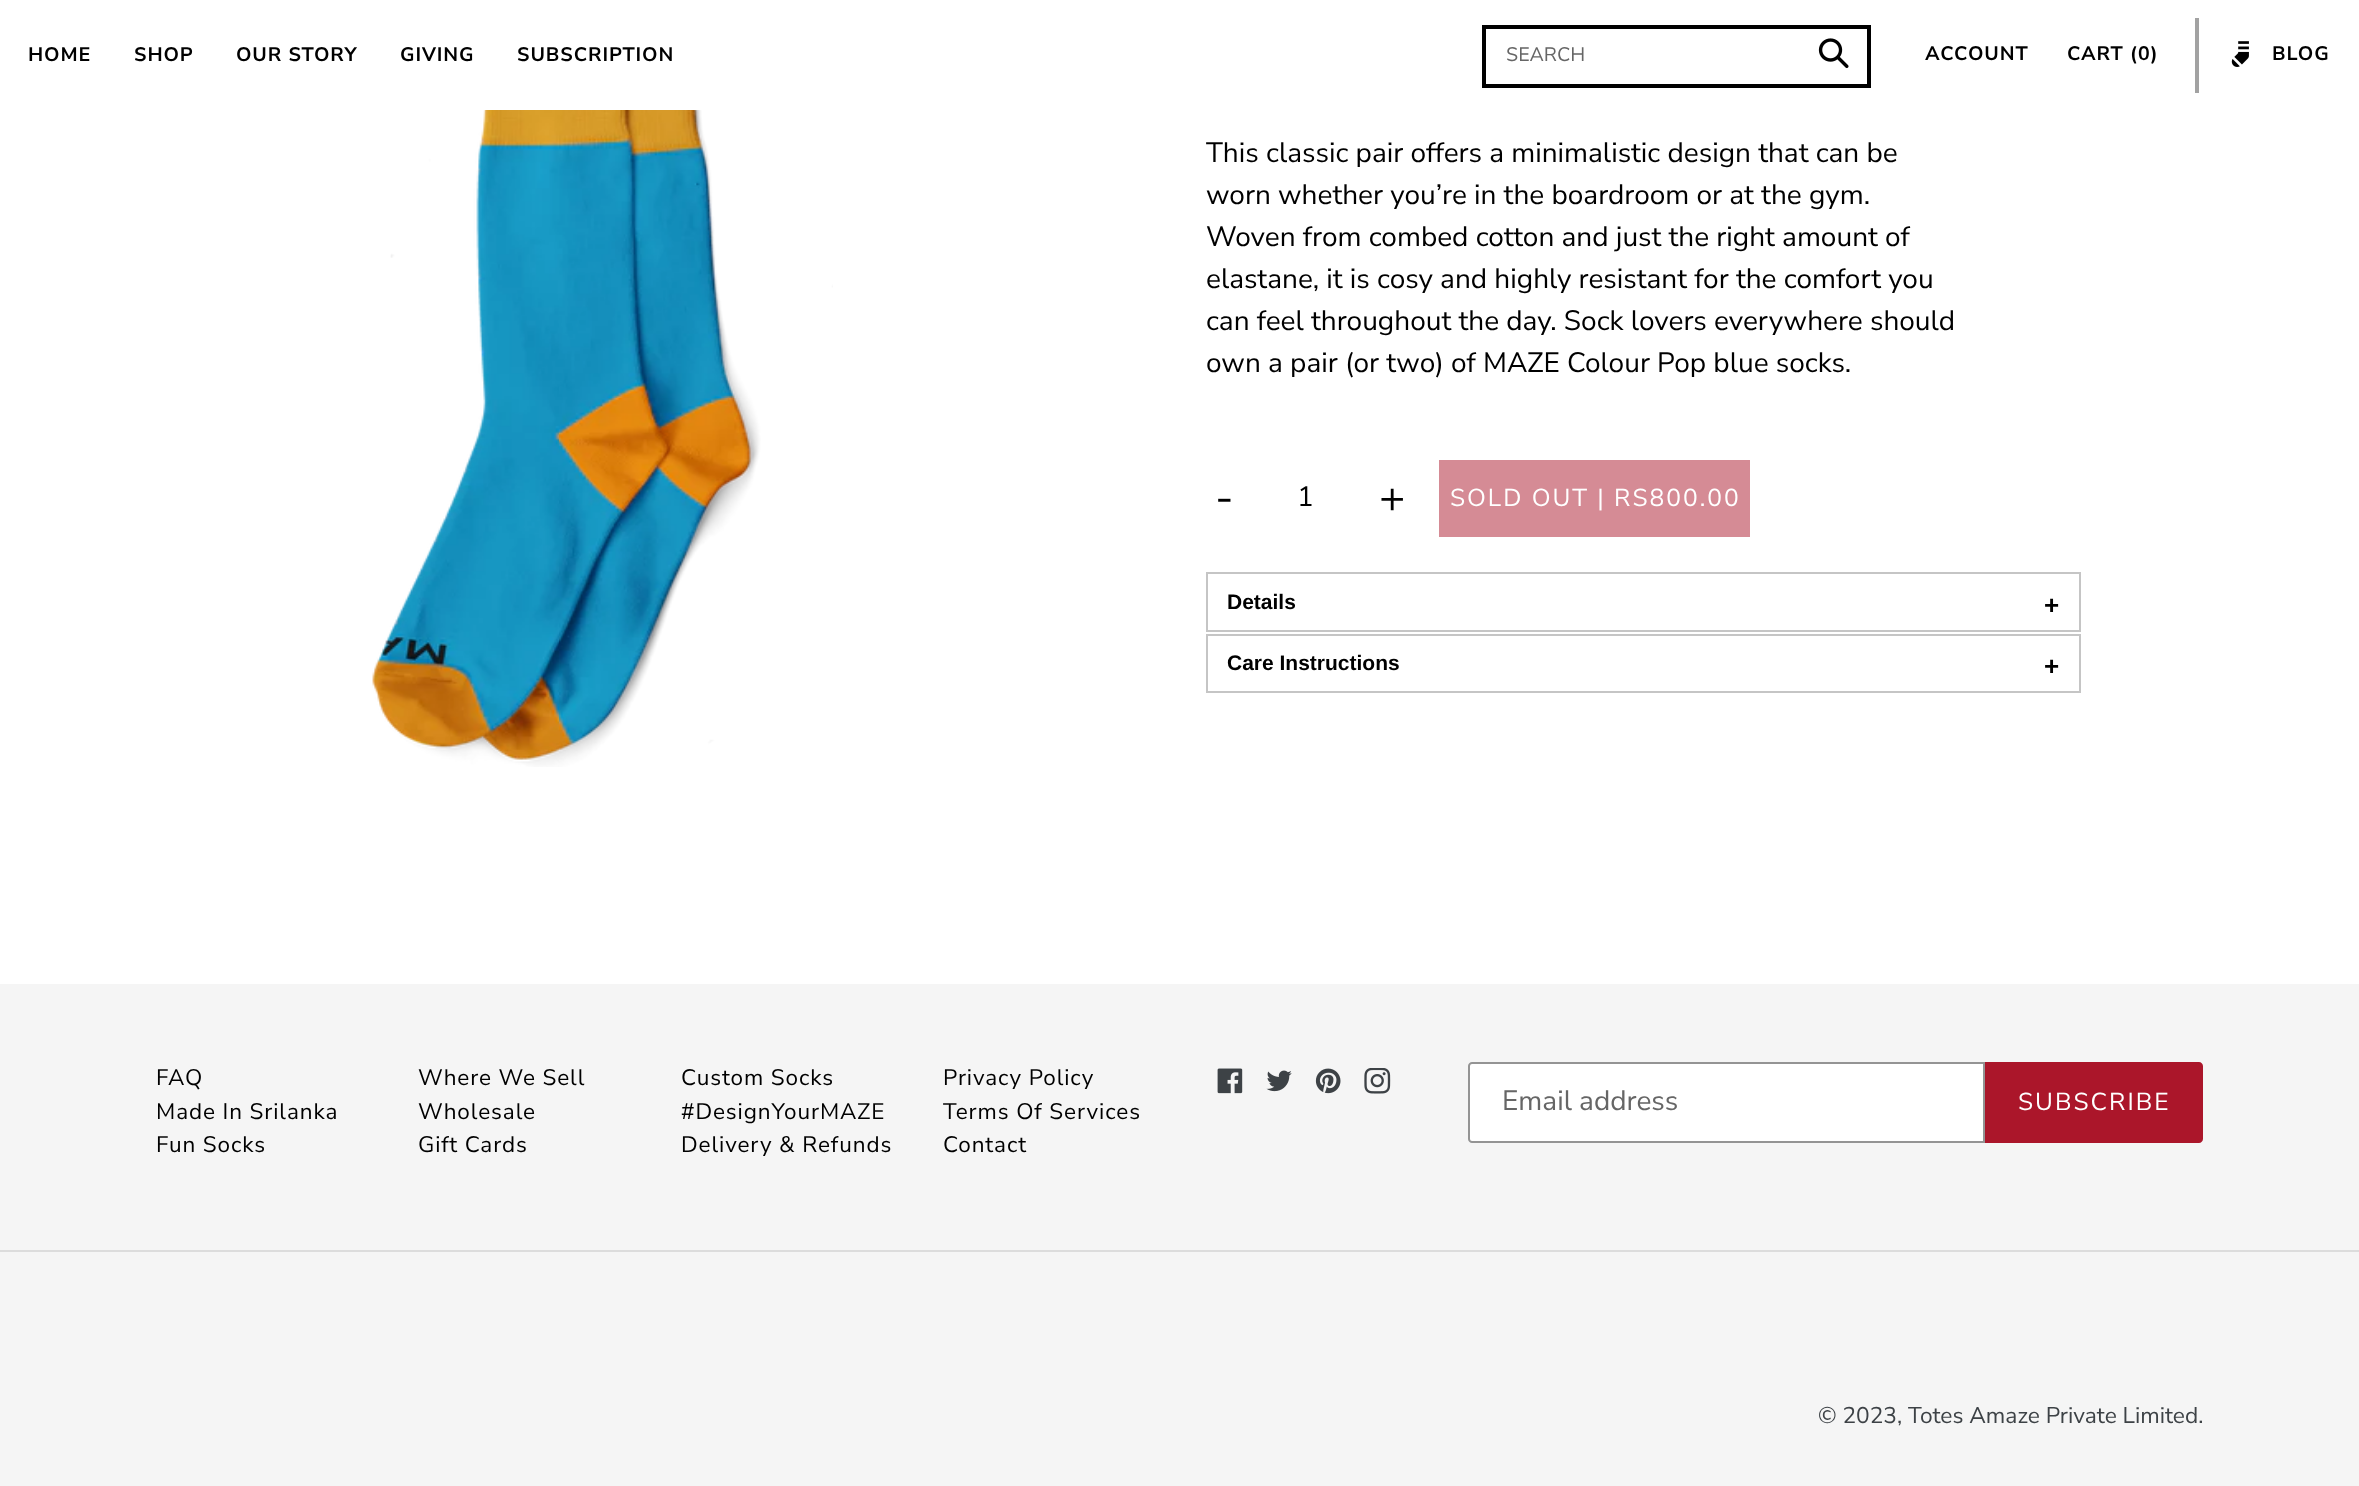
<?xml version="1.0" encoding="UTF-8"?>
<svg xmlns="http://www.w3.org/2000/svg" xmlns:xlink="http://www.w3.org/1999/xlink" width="2359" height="1486">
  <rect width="100%" height="100%" fill="#ffffff" />
  <rect x="1484" y="27" width="385" height="59" fill="none" stroke="#000000" stroke-width="4" />
  <image x="1818" y="38" width="31" height="31" xlink:href="image1.png" />
  <rect x="2195" y="18" width="4" height="75" fill="#a2a2a2" />
  <image x="2231" y="41" width="18" height="26" xlink:href="image2.png" />
  <image x="372" y="110" width="461" height="657" xlink:href="image3.png" />
  <rect x="1439" y="460" width="311" height="77" fill="#d58b95" />
  <rect x="1207" y="573" width="873" height="58" fill="none" stroke="#c5c5c5" stroke-width="2" />
  <rect x="1207" y="635" width="873" height="57" fill="none" stroke="#c5c5c5" stroke-width="2" />
  <rect y="984" width="2359" height="502" fill="#f5f5f5" />
  <image x="1217" y="1068" width="26" height="26" xlink:href="image4.png" />
  <image x="1266" y="1070" width="26" height="22" xlink:href="image5.png" />
  <image x="1315" y="1068" width="26" height="26" xlink:href="image6.png" />
  <image x="1364" y="1068" width="27" height="26" xlink:href="image7.png" />
  <path d="M 1472 1063 h 512 v 79 h -512 c -1.5 0 -3 -1.5 -3 -3 v -73 c 0 -1.5 1.5 -3 3 -3 z" fill="#ffffff" stroke="#949494" stroke-width="2" />
  <path d="M 1985 1062 h 214 c 2 0 4 2 4 4 v 73 c 0 2 -2 4 -4 4 h -214 z" fill="#ab162a" />
  <rect y="1250" width="2359" height="2" fill="#dcdcdc" />
  <text x="28" y="61" style="font-family: Nunito Sans; font-size: 19.5px; font-weight: bold; letter-spacing: 0.9px; fill: #000000">HOME</text>
  <text x="134" y="61" style="font-family: Nunito Sans; font-size: 19.5px; font-weight: bold; letter-spacing: 0.9px; fill: #000000">SHOP</text>
  <text x="236" y="61" style="font-family: Nunito Sans; font-size: 19.5px; font-weight: bold; letter-spacing: 0.9px; fill: #000000">OUR STORY</text>
  <text x="400" y="61" style="font-family: Nunito Sans; font-size: 19.5px; font-weight: bold; letter-spacing: 0.9px; fill: #000000">GIVING</text>
  <text x="517" y="61" style="font-family: Nunito Sans; font-size: 19.5px; font-weight: bold; letter-spacing: 0.9px; fill: #000000">SUBSCRIPTION</text>
  <text x="1506" y="61" style="font-family: 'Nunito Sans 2'; font-size: 19.5px; fill: #666666">SEARCH</text>
  <text x="1925" y="60" style="font-family: Nunito Sans; font-size: 19.5px; font-weight: bold; letter-spacing: 0.9px; fill: #000000">ACCOUNT</text>
  <text x="2067" y="60" style="font-family: Nunito Sans; font-size: 19.5px; font-weight: bold; letter-spacing: 0.9px; fill: #000000">CART (0)</text>
  <text x="2272" y="60" style="font-family: Nunito Sans; font-size: 19.5px; font-weight: bold; letter-spacing: 0.9px; fill: #000000">BLOG</text>
  <text x="1206" y="162" style="font-family: Nunito Sans; font-size: 28px; fill: #000000">This classic pair offers a minimalistic design that can be</text>
  <text x="1206" y="204" style="font-family: Nunito Sans; font-size: 28px; fill: #000000">worn whether you’re in the boardroom or at the gym.</text>
  <text x="1206" y="246" style="font-family: Nunito Sans; font-size: 28px; fill: #000000">Woven from combed cotton and just the right amount of</text>
  <text x="1206" y="288" style="font-family: Nunito Sans; font-size: 28px; fill: #000000">elastane, it is cosy and highly resistant for the comfort you</text>
  <text x="1206" y="330" style="font-family: Nunito Sans; font-size: 28px; fill: #000000">can feel throughout the day. Sock lovers everywhere should</text>
  <text x="1206" y="372" style="font-family: Nunito Sans; font-size: 28px; fill: #000000">own a pair (or two) of MAZE Colour Pop blue socks.</text>
  <text x="1215" y="512" style="font-family: Nunito Sans; font-size: 44px; fill: #000000">-</text>
  <text x="1297" y="506" style="font-family: Nunito Sans; font-size: 28px; fill: #000000">1</text>
  <text x="1379" y="512" style="font-family: Nunito Sans; font-size: 44px; fill: #000000">+</text>
  <text x="1450" y="506" style="font-family: Nunito Sans; font-size: 24.5px; letter-spacing: 2px; fill: #ffffff">SOLD OUT | RS800.00</text>
  <text x="1227" y="609" style="font-family: Liberation Sans; font-size: 21px; font-weight: bold; fill: #000000">Details</text>
  <text x="2044" y="614" style="font-family: Liberation Sans; font-size: 26px; font-weight: bold; fill: #000000">+</text>
  <text x="1227" y="670" style="font-family: Liberation Sans; font-size: 21px; font-weight: bold; fill: #000000">Care Instructions</text>
  <text x="2044" y="675" style="font-family: Liberation Sans; font-size: 26px; font-weight: bold; fill: #000000">+</text>
  <text x="156" y="1085" style="font-family: Nunito Sans; font-size: 22.5px; letter-spacing: 0.9px; fill: #000000">FAQ</text>
  <text x="156" y="1119" style="font-family: Nunito Sans; font-size: 22.5px; letter-spacing: 0.9px; fill: #000000">Made In Srilanka</text>
  <text x="156" y="1152" style="font-family: Nunito Sans; font-size: 22.5px; letter-spacing: 0.9px; fill: #000000">Fun Socks</text>
  <text x="418" y="1085" style="font-family: Nunito Sans; font-size: 22.5px; letter-spacing: 0.9px; fill: #000000">Where We Sell</text>
  <text x="418" y="1119" style="font-family: Nunito Sans; font-size: 22.5px; letter-spacing: 0.9px; fill: #000000">Wholesale</text>
  <text x="418" y="1152" style="font-family: Nunito Sans; font-size: 22.5px; letter-spacing: 0.9px; fill: #000000">Gift Cards</text>
  <text x="681" y="1085" style="font-family: Nunito Sans; font-size: 22.5px; letter-spacing: 0.9px; fill: #000000">Custom Socks</text>
  <text x="681" y="1119" style="font-family: Nunito Sans; font-size: 22.5px; letter-spacing: 0.9px; fill: #000000">#DesignYourMAZE</text>
  <text x="681" y="1152" style="font-family: Nunito Sans; font-size: 22.5px; letter-spacing: 0.9px; fill: #000000">Delivery &amp; Refunds</text>
  <text x="943" y="1085" style="font-family: Nunito Sans; font-size: 22.5px; letter-spacing: 0.9px; fill: #000000">Privacy Policy</text>
  <text x="943" y="1119" style="font-family: Nunito Sans; font-size: 22.5px; letter-spacing: 0.9px; fill: #000000">Terms Of Services</text>
  <text x="943" y="1152" style="font-family: Nunito Sans; font-size: 22.5px; letter-spacing: 0.9px; fill: #000000">Contact</text>
  <text x="1502" y="1110" style="font-family: Nunito Sans; font-size: 28px; fill: #666666">Email address</text>
  <text x="2018" y="1110" style="font-family: Nunito Sans; font-size: 24.5px; letter-spacing: 2px; fill: #ffffff">SUBSCRIBE</text>
  <text x="1818" y="1423" style="font-family: Nunito Sans; font-size: 22.75px; fill: #3d4246">© 2023, Totes Amaze Private Limited.</text>
</svg>
